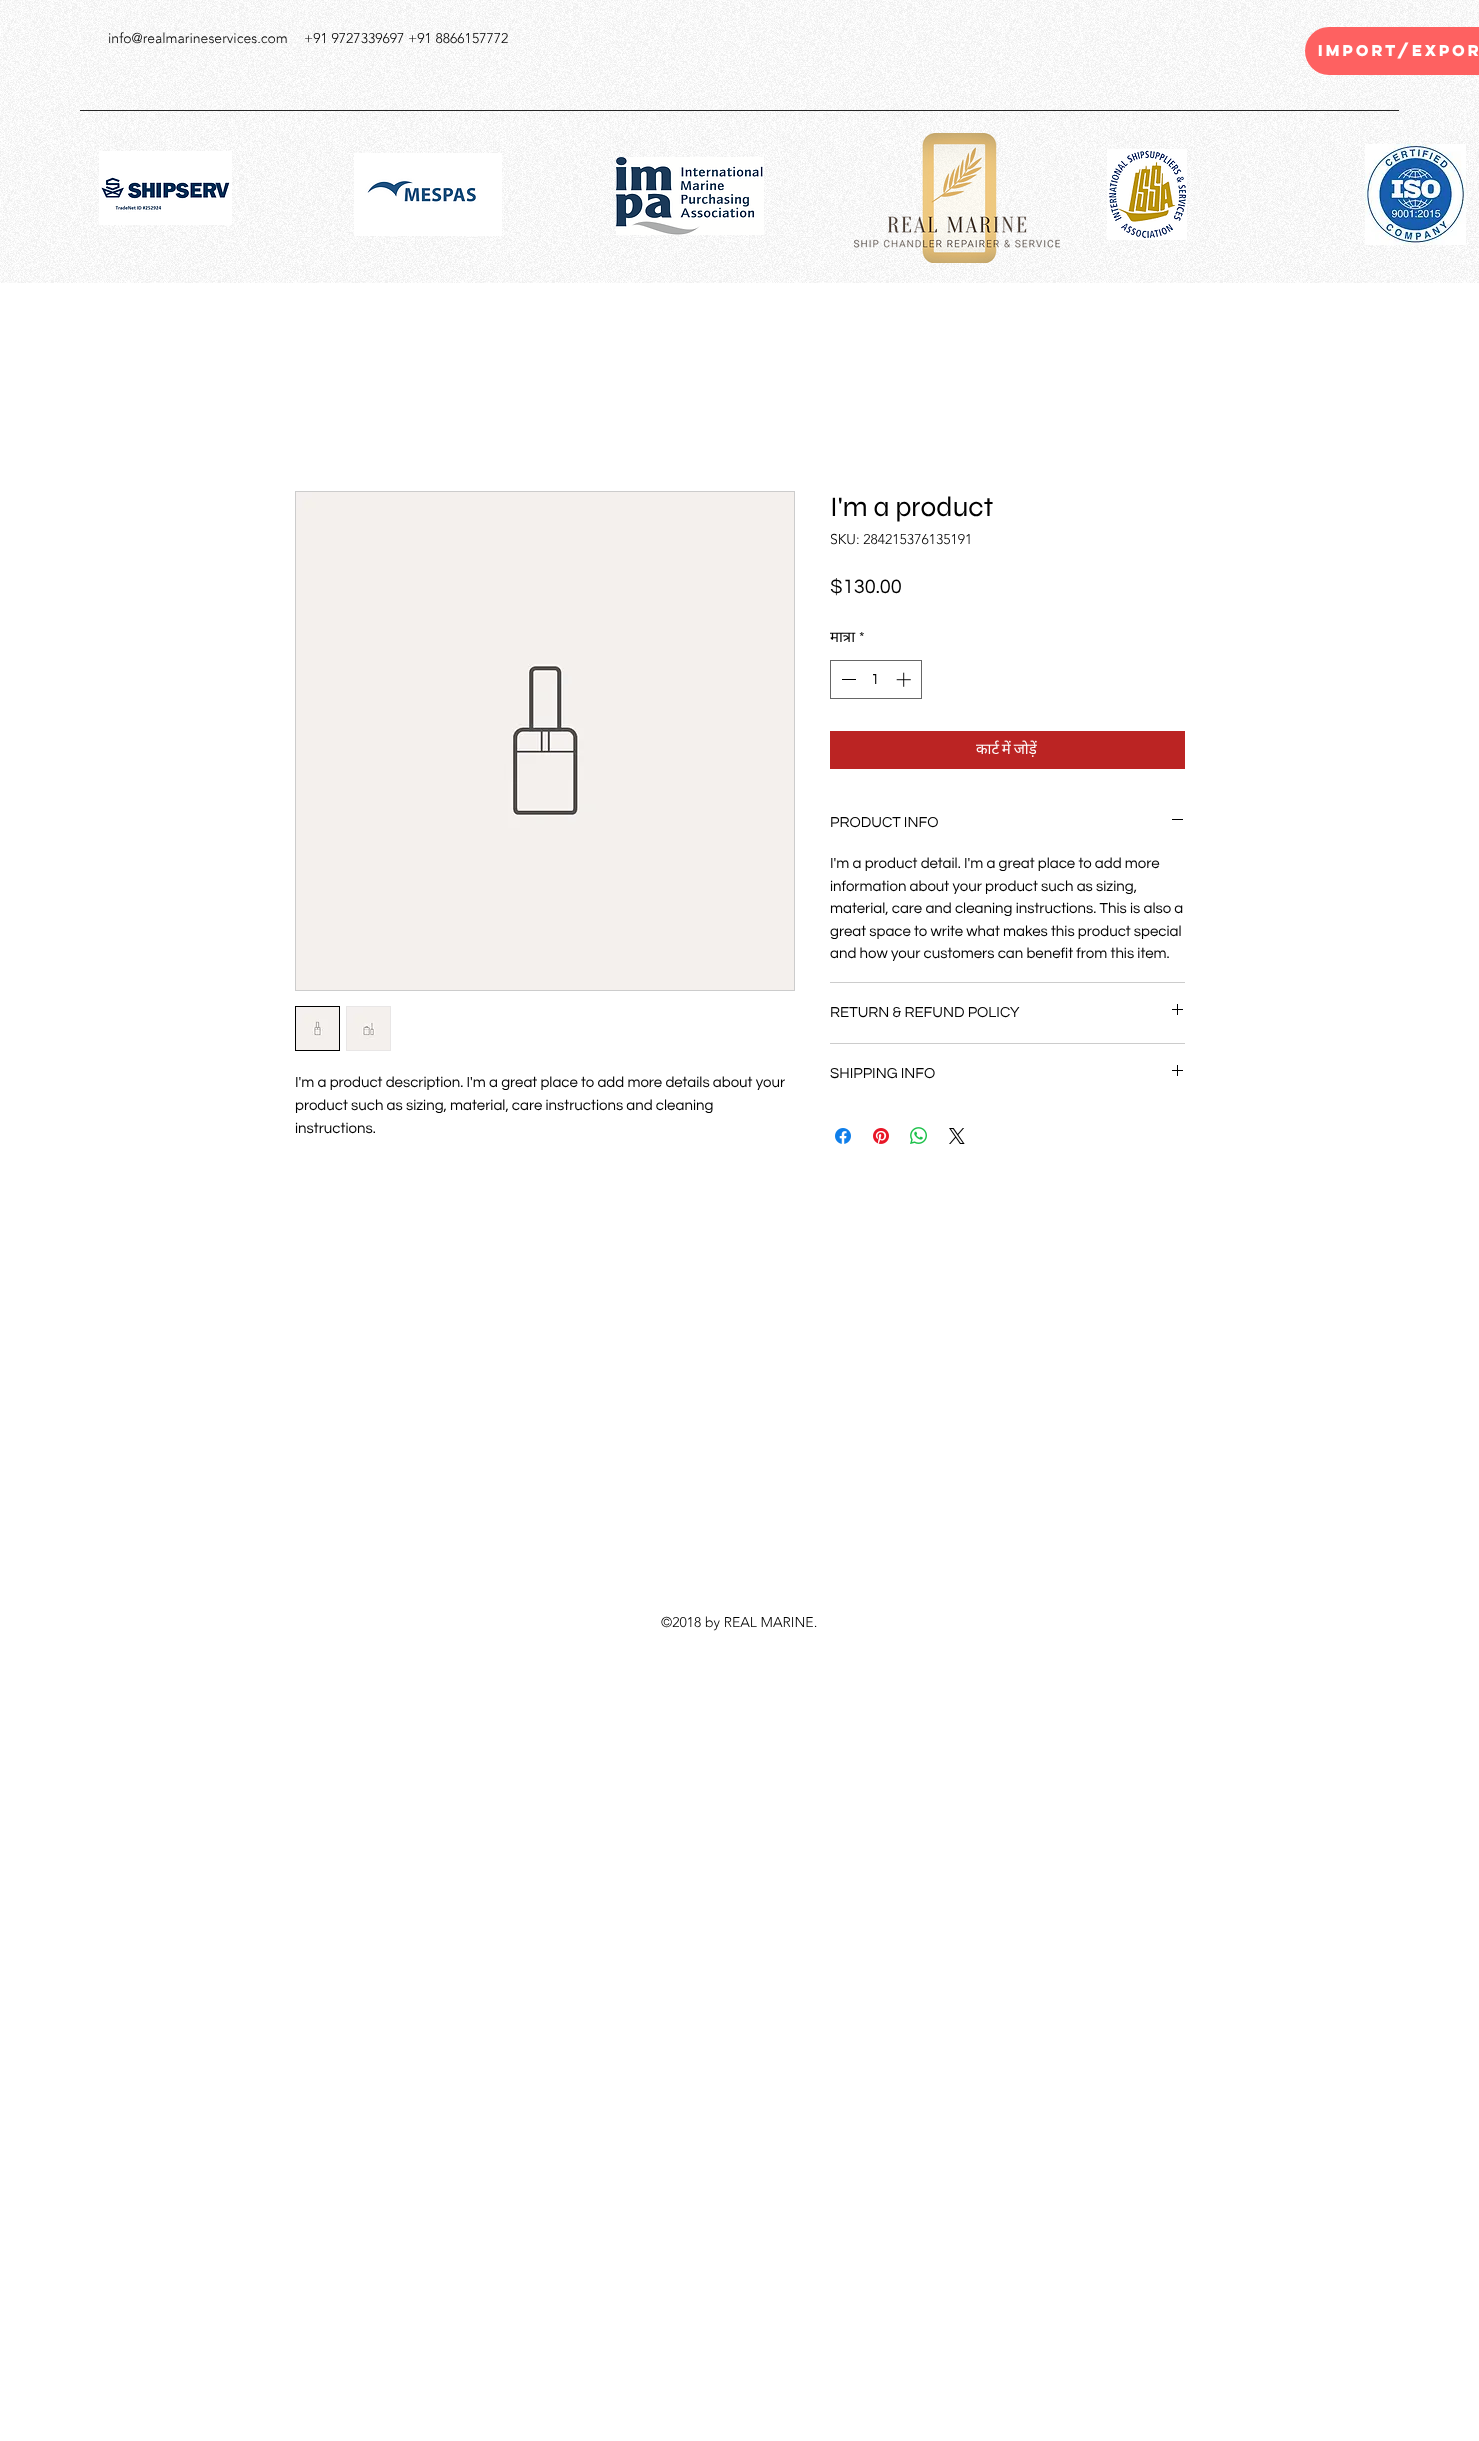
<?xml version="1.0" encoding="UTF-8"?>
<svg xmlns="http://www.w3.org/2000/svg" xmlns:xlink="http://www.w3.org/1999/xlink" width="1479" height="2441">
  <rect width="100%" height="100%" fill="#ffffff" />
  <image x="0" y="0" width="1479" height="283" xlink:href="image1.png" />
  <rect x="1305" y="27" width="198" height="48" rx="24" fill="#fe6161" />
  <rect x="80" y="110" width="1319" height="1" fill="#000000" fill-opacity="0.85" />
  <image x="99" y="151" width="133" height="74" xlink:href="image2.png" />
  <image x="354" y="153" width="148" height="83" xlink:href="image3.png" />
  <image x="616" y="157" width="148" height="78" xlink:href="image4.png" />
  <image x="854" y="133" width="206" height="130" xlink:href="image5.png" />
  <image x="1107" y="149" width="80" height="91" xlink:href="image6.png" />
  <image x="1365" y="144" width="101" height="101" xlink:href="image7.png" />
  <rect x="830.5" y="660.5" width="91" height="38" fill="none" stroke="#666666" />
  <rect x="842" y="679" width="14" height="1" fill="#000000" />
  <image x="896" y="672" width="15" height="15" xlink:href="image8.png" />
  <rect x="830" y="731" width="355" height="38" fill="#bb2423" />
  <rect x="830" y="982" width="355" height="1" fill="#cccccc" />
  <rect x="1172" y="819" width="11" height="1" fill="#000000" />
  <rect x="830" y="1043" width="355" height="1" fill="#cccccc" />
  <image x="1172" y="1004" width="11" height="11" xlink:href="image9.png" />
  <image x="1172" y="1065" width="11" height="11" xlink:href="image9.png" />
  <image x="835" y="1128" width="16" height="16" xlink:href="image10.png" />
  <image x="873" y="1128" width="16" height="16" xlink:href="image11.png" />
  <image x="910" y="1127" width="17" height="17" xlink:href="image12.png" />
  <image x="949" y="1128" width="16" height="16" xlink:href="image13.png" />
  <rect x="295.5" y="491.5" width="499" height="499" fill="none" stroke="#cccccc" />
  <image x="296" y="492" width="498" height="498" xlink:href="image14.png" />
  <rect x="295.5" y="1006.5" width="44" height="44" fill="none" stroke="#000000" />
  <image x="296" y="1007" width="43" height="43" xlink:href="image15.png" />
  <rect x="346" y="1006" width="45" height="45" fill="#e8e6e6" />
  <image x="347" y="1007" width="43" height="43" xlink:href="image16.png" />
  <text x="108" y="43" style="font-family: 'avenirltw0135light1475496'; font-size: 14px; font-weight: 300; fill: #000000">info@realmarineservices.com</text>
  <text x="304" y="43" style="font-family: 'avenirltw0135light1475496'; font-size: 14px; font-weight: 300; fill: #000000">+91 9727339697 +91 8866157772</text>
  <text x="1318" y="56" style="font-family: 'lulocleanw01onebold'; font-size: 14px; font-weight: bold; fill: #ffffff">IMPORT/EXPOR</text>
  <text x="830" y="516" style="font-family: Syne; font-size: 28px; fill: #000000">I'm a product</text>
  <text x="830" y="544" style="font-family: 'avenirltw0135light1475496'; font-size: 14px; font-weight: 300; fill: #000000">SKU: 284215376135191</text>
  <text x="830" y="593" style="font-family: Questrial; font-size: 20px; fill: #000000">$130.00</text>
  <text x="830" y="642" style="font-family: Noto Sans; font-size: 15px; fill: #000000">मात्रा</text>
  <text x="859" y="642" style="font-family: Questrial; font-size: 15px; fill: #000000">*</text>
  <text x="871" y="684" style="font-family: Questrial; font-size: 15px; fill: #000000">1</text>
  <text x="976" y="754" word-spacing="-1" style="font-family: Noto Sans; font-size: 15px; fill: #ffffff">कार्ट में जोड़ें</text>
  <text x="830" y="827" style="font-family: Questrial; font-size: 15px; fill: #000000">PRODUCT INFO</text>
  <text x="830" y="868" style="font-family: Questrial; font-size: 15px; fill: #000000">I'm a product detail. I'm a great place to add more</text>
  <text x="830" y="891" style="font-family: Questrial; font-size: 15px; fill: #000000">information about your product such as sizing,</text>
  <text x="830" y="913" style="font-family: Questrial; font-size: 15px; fill: #000000">material, care and cleaning instructions. This is also a</text>
  <text x="830" y="936" style="font-family: Questrial; font-size: 15px; fill: #000000">great space to write what makes this product special</text>
  <text x="830" y="958" style="font-family: Questrial; font-size: 15px; fill: #000000">and how your customers can benefit from this item.</text>
  <text x="830" y="1017" style="font-family: Questrial; font-size: 15px; fill: #000000">RETURN &amp; REFUND POLICY</text>
  <text x="830" y="1078" style="font-family: Questrial; font-size: 15px; fill: #000000">SHIPPING INFO</text>
  <text x="295" y="1087" style="font-family: Questrial; font-size: 15px; fill: #000000">I'm a product description. I'm a great place to add more details about your</text>
  <text x="295" y="1110" style="font-family: Questrial; font-size: 15px; fill: #000000">product such as sizing, material, care instructions and cleaning</text>
  <text x="295" y="1133" style="font-family: Questrial; font-size: 15px; fill: #000000">instructions.</text>
  <text x="661" y="1627" style="font-family: 'avenirltw0135light1475496'; font-size: 14px; font-weight: 300; fill: #000000">©2018 by REAL MARINE.</text>
</svg>
